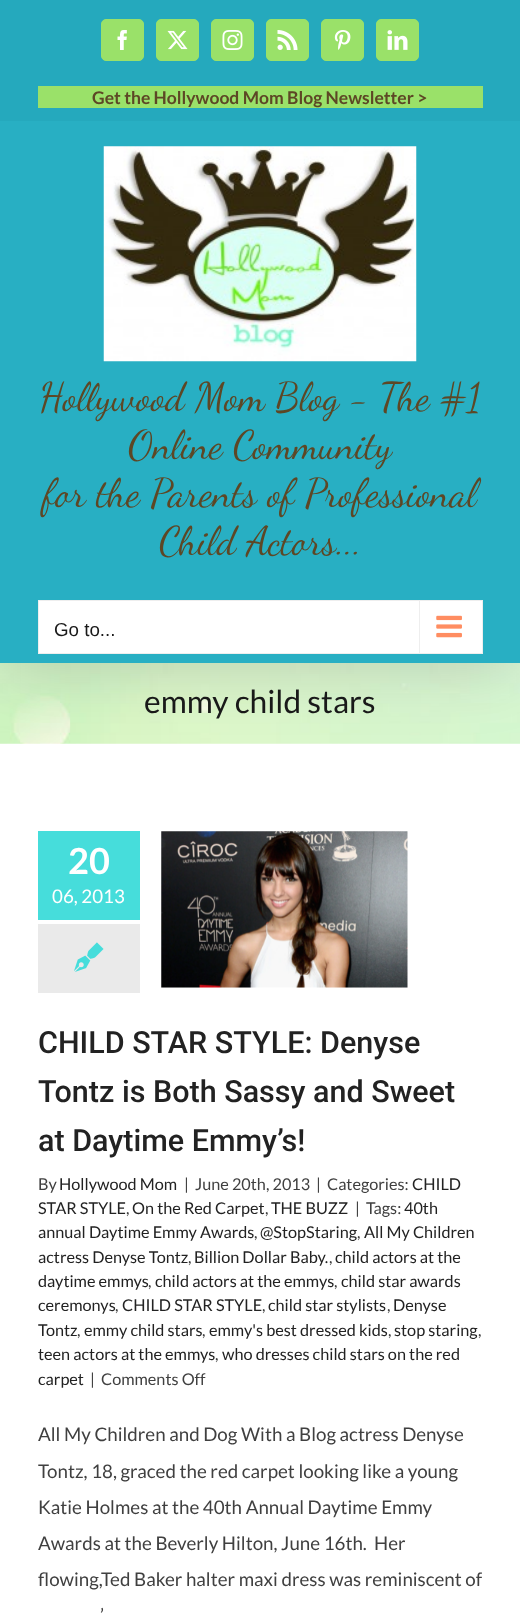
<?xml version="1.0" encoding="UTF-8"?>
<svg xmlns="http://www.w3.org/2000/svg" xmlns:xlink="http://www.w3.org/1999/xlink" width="520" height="1613">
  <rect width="100%" height="100%" fill="#ffffff" />
  <image x="0" y="663" width="520" height="81" xlink:href="image9.png" />
  <rect x="3" y="15" width="515" height="658" fill="#000000" fill-opacity="0.14" filter="blur(31px)" />
  <rect width="520" height="121" fill="#25a9bd" />
  <rect x="101.5" y="19.5" width="42" height="41" rx="4.5" fill="#9ae169" stroke="#9ae169" />
  <image x="117" y="30" width="10" height="20" xlink:href="image1.png" />
  <rect x="156.5" y="19.5" width="42" height="41" rx="4.5" fill="#9ae169" stroke="#9ae169" />
  <image x="167" y="30" width="21" height="20" xlink:href="image2.png" />
  <rect x="211.5" y="19.5" width="42" height="41" rx="4.5" fill="#9ae169" stroke="#9ae169" />
  <image x="222" y="30" width="21" height="20" xlink:href="image3.png" />
  <rect x="266.5" y="19.5" width="42" height="41" rx="4.5" fill="#9ae169" stroke="#9ae169" />
  <image x="277" y="30" width="21" height="20" xlink:href="image4.png" />
  <rect x="321.5" y="19.5" width="42" height="41" rx="4.5" fill="#9ae169" stroke="#9ae169" />
  <image x="334" y="30" width="17" height="20" xlink:href="image5.png" />
  <rect x="376.5" y="19.5" width="42" height="41" rx="4.5" fill="#9ae169" stroke="#9ae169" />
  <image x="387" y="30" width="21" height="20" xlink:href="image6.png" />
  <rect x="38" y="86" width="445" height="22" fill="#9ae169" />
  <rect y="121" width="520" height="542" fill="#28afc3" />
  <image x="103" y="146" width="314" height="216" xlink:href="image7.png" />
  <rect x="38.5" y="600.5" width="444" height="53" fill="#ffffff" stroke="#eeeeee" />
  <rect x="419" y="601" width="1" height="52" fill="#eeeeee" />
  <image x="436" y="615" width="26" height="23" xlink:href="image8.png" />
  <rect x="38" y="831" width="102" height="89" fill="#46dddb" />
  <rect x="38" y="924" width="102" height="69" fill="#eaeaea" />
  <image x="74" y="942" width="30" height="30" xlink:href="image10.png" />
  <image x="161" y="831" width="247" height="157" xlink:href="image11.png" />
  <text x="92" y="104" style="font-family: Lato; font-size: 17.5px; font-weight: bold; fill: #5d4725">Get the Hollywood Mom Blog Newsletter &gt;</text>
  <text x="39" y="410" style="font-family: Dancing Script; font-size: 40px; fill: #5d4725">Hollywood Mom Blog - The #1</text>
  <text x="128" y="458" style="font-family: Dancing Script; font-size: 40px; fill: #5d4725">Online Community</text>
  <text x="43" y="506" style="font-family: Dancing Script; font-size: 40px; fill: #5d4725">for the Parents of Professional</text>
  <text x="159" y="554" style="font-family: Dancing Script; font-size: 40px; fill: #5d4725">Child Actors...</text>
  <text x="54" y="636" style="font-family: Liberation Sans; font-size: 18.75px; fill: #191919">Go to...</text>
  <text x="144" y="713" style="font-family: Lato; font-size: 31.75px; fill: #191919">emmy child stars</text>
  <text x="68" y="874" style="font-family: Lato; font-size: 36px; font-weight: bold; fill: #ffffff">20</text>
  <text x="52" y="903" style="font-family: Lato; font-size: 18.75px; fill: #ffffff">06, 2013</text>
  <text x="38" y="1053" style="font-family: Roboto; font-size: 30.5px; font-weight: 500; fill: #222222">CHILD STAR STYLE: Denyse</text>
  <text x="38" y="1102" style="font-family: Roboto; font-size: 30.5px; font-weight: 500; fill: #222222">Tontz is Both Sassy and Sweet</text>
  <text x="38" y="1151" style="font-family: Roboto; font-size: 30.5px; font-weight: 500; fill: #222222">at Daytime Emmy’s!</text>
  <text x="38" y="1190" style="font-family: Lato; font-size: 16.25px; fill: #404040">By</text>
  <text x="59" y="1190" style="font-family: Lato; font-size: 16.25px; fill: #222222">Hollywood Mom</text>
  <text x="184" y="1190" style="font-family: Lato; font-size: 16.25px; fill: #404040">|</text>
  <text x="195" y="1190" style="font-family: Lato; font-size: 16.25px; fill: #404040">June 20th, 2013</text>
  <text x="316" y="1190" style="font-family: Lato; font-size: 16.25px; fill: #404040">|</text>
  <text x="327" y="1190" style="font-family: Lato; font-size: 16.25px; fill: #404040">Categories:</text>
  <text x="412" y="1190" style="font-family: Lato; font-size: 16.25px; fill: #222222">CHILD</text>
  <text x="38" y="1214" style="font-family: Lato; font-size: 16.25px; fill: #222222">STAR STYLE</text>
  <text x="126" y="1214" style="font-family: Lato; font-size: 16.25px; fill: #404040">,</text>
  <text x="132" y="1214" style="font-family: Lato; font-size: 16.25px; fill: #222222">On the Red Carpet</text>
  <text x="265" y="1214" style="font-family: Lato; font-size: 16.25px; fill: #404040">,</text>
  <text x="271" y="1214" style="font-family: Lato; font-size: 16.25px; fill: #222222">THE BUZZ</text>
  <text x="355" y="1214" style="font-family: Lato; font-size: 16.25px; fill: #404040">|</text>
  <text x="366" y="1214" style="font-family: Lato; font-size: 16.25px; fill: #404040">Tags:</text>
  <text x="404" y="1214" style="font-family: Lato; font-size: 16.25px; fill: #222222">40th</text>
  <text x="38" y="1238" style="font-family: Lato; font-size: 16.25px; fill: #222222">annual Daytime Emmy Awards</text>
  <text x="254" y="1238" style="font-family: Lato; font-size: 16.25px; fill: #404040">,</text>
  <text x="260" y="1238" style="font-family: Lato; font-size: 16.25px; fill: #222222">@StopStaring</text>
  <text x="357" y="1238" style="font-family: Lato; font-size: 16.25px; fill: #404040">,</text>
  <text x="364" y="1238" style="font-family: Lato; font-size: 16.25px; fill: #222222">All My Children</text>
  <text x="38" y="1263" style="font-family: Lato; font-size: 16.25px; fill: #222222">actress Denyse Tontz</text>
  <text x="188" y="1263" style="font-family: Lato; font-size: 16.25px; fill: #404040">,</text>
  <text x="194" y="1263" style="font-family: Lato; font-size: 16.25px; fill: #222222">Billion Dollar Baby.</text>
  <text x="329" y="1263" style="font-family: Lato; font-size: 16.25px; fill: #404040">,</text>
  <text x="335" y="1263" style="font-family: Lato; font-size: 16.25px; fill: #222222">child actors at the</text>
  <text x="38" y="1287" style="font-family: Lato; font-size: 16.25px; fill: #222222">daytime emmys</text>
  <text x="148" y="1287" style="font-family: Lato; font-size: 16.25px; fill: #404040">,</text>
  <text x="155" y="1287" style="font-family: Lato; font-size: 16.25px; fill: #222222">child actors at the emmys</text>
  <text x="334" y="1287" style="font-family: Lato; font-size: 16.25px; fill: #404040">,</text>
  <text x="341" y="1287" style="font-family: Lato; font-size: 16.25px; fill: #222222">child star awards</text>
  <text x="38" y="1311" style="font-family: Lato; font-size: 16.25px; fill: #222222">ceremonys</text>
  <text x="115" y="1311" style="font-family: Lato; font-size: 16.25px; fill: #404040">,</text>
  <text x="122" y="1311" style="font-family: Lato; font-size: 16.25px; fill: #222222">CHILD STAR STYLE</text>
  <text x="262" y="1311" style="font-family: Lato; font-size: 16.25px; fill: #404040">,</text>
  <text x="268" y="1311" style="font-family: Lato; font-size: 16.25px; fill: #222222">child star stylists</text>
  <text x="387" y="1311" style="font-family: Lato; font-size: 16.25px; fill: #404040">,</text>
  <text x="393" y="1311" style="font-family: Lato; font-size: 16.25px; fill: #222222">Denyse</text>
  <text x="38" y="1336" style="font-family: Lato; font-size: 16.25px; fill: #222222">Tontz</text>
  <text x="77" y="1336" style="font-family: Lato; font-size: 16.25px; fill: #404040">,</text>
  <text x="84" y="1336" style="font-family: Lato; font-size: 16.25px; fill: #222222">emmy child stars</text>
  <text x="202" y="1336" style="font-family: Lato; font-size: 16.25px; fill: #404040">,</text>
  <text x="209" y="1336" style="font-family: Lato; font-size: 16.25px; fill: #222222">emmy's best dressed kids</text>
  <text x="388" y="1336" style="font-family: Lato; font-size: 16.25px; fill: #404040">,</text>
  <text x="394" y="1336" style="font-family: Lato; font-size: 16.25px; fill: #222222">stop staring</text>
  <text x="478" y="1336" style="font-family: Lato; font-size: 16.25px; fill: #404040">,</text>
  <text x="38" y="1360" style="font-family: Lato; font-size: 16.25px; fill: #222222">teen actors at the emmys</text>
  <text x="215" y="1360" style="font-family: Lato; font-size: 16.25px; fill: #404040">,</text>
  <text x="222" y="1360" style="font-family: Lato; font-size: 16.25px; fill: #222222">who dresses child stars on the red</text>
  <text x="38" y="1385" style="font-family: Lato; font-size: 16.25px; fill: #222222">carpet</text>
  <text x="90" y="1385" style="font-family: Lato; font-size: 16.25px; fill: #404040">|</text>
  <text x="101" y="1385" style="font-family: Lato; font-size: 16.25px; fill: #404040">Comments Off</text>
  <text x="38" y="1441" style="font-family: Lato; font-size: 18.75px; fill: #404040">All My Children and Dog With a Blog actress Denyse</text>
  <text x="38" y="1478" style="font-family: Lato; font-size: 18.75px; fill: #404040">Tontz, 18, graced the red carpet looking like a young</text>
  <text x="38" y="1514" style="font-family: Lato; font-size: 18.75px; fill: #404040">Katie Holmes at the 40th Annual Daytime Emmy</text>
  <text x="38" y="1550" style="font-family: Lato; font-size: 18.75px; fill: #404040" xml:space="preserve">Awards at the Beverly Hilton, June 16th.  Her</text>
  <text x="38" y="1586" style="font-family: Lato; font-size: 18.75px; fill: #404040">flowing,Ted Baker halter maxi dress was reminiscent of</text>
  <text x="100" y="1622" style="font-family: Lato; font-size: 18.75px; fill: #404040">’</text>
</svg>
